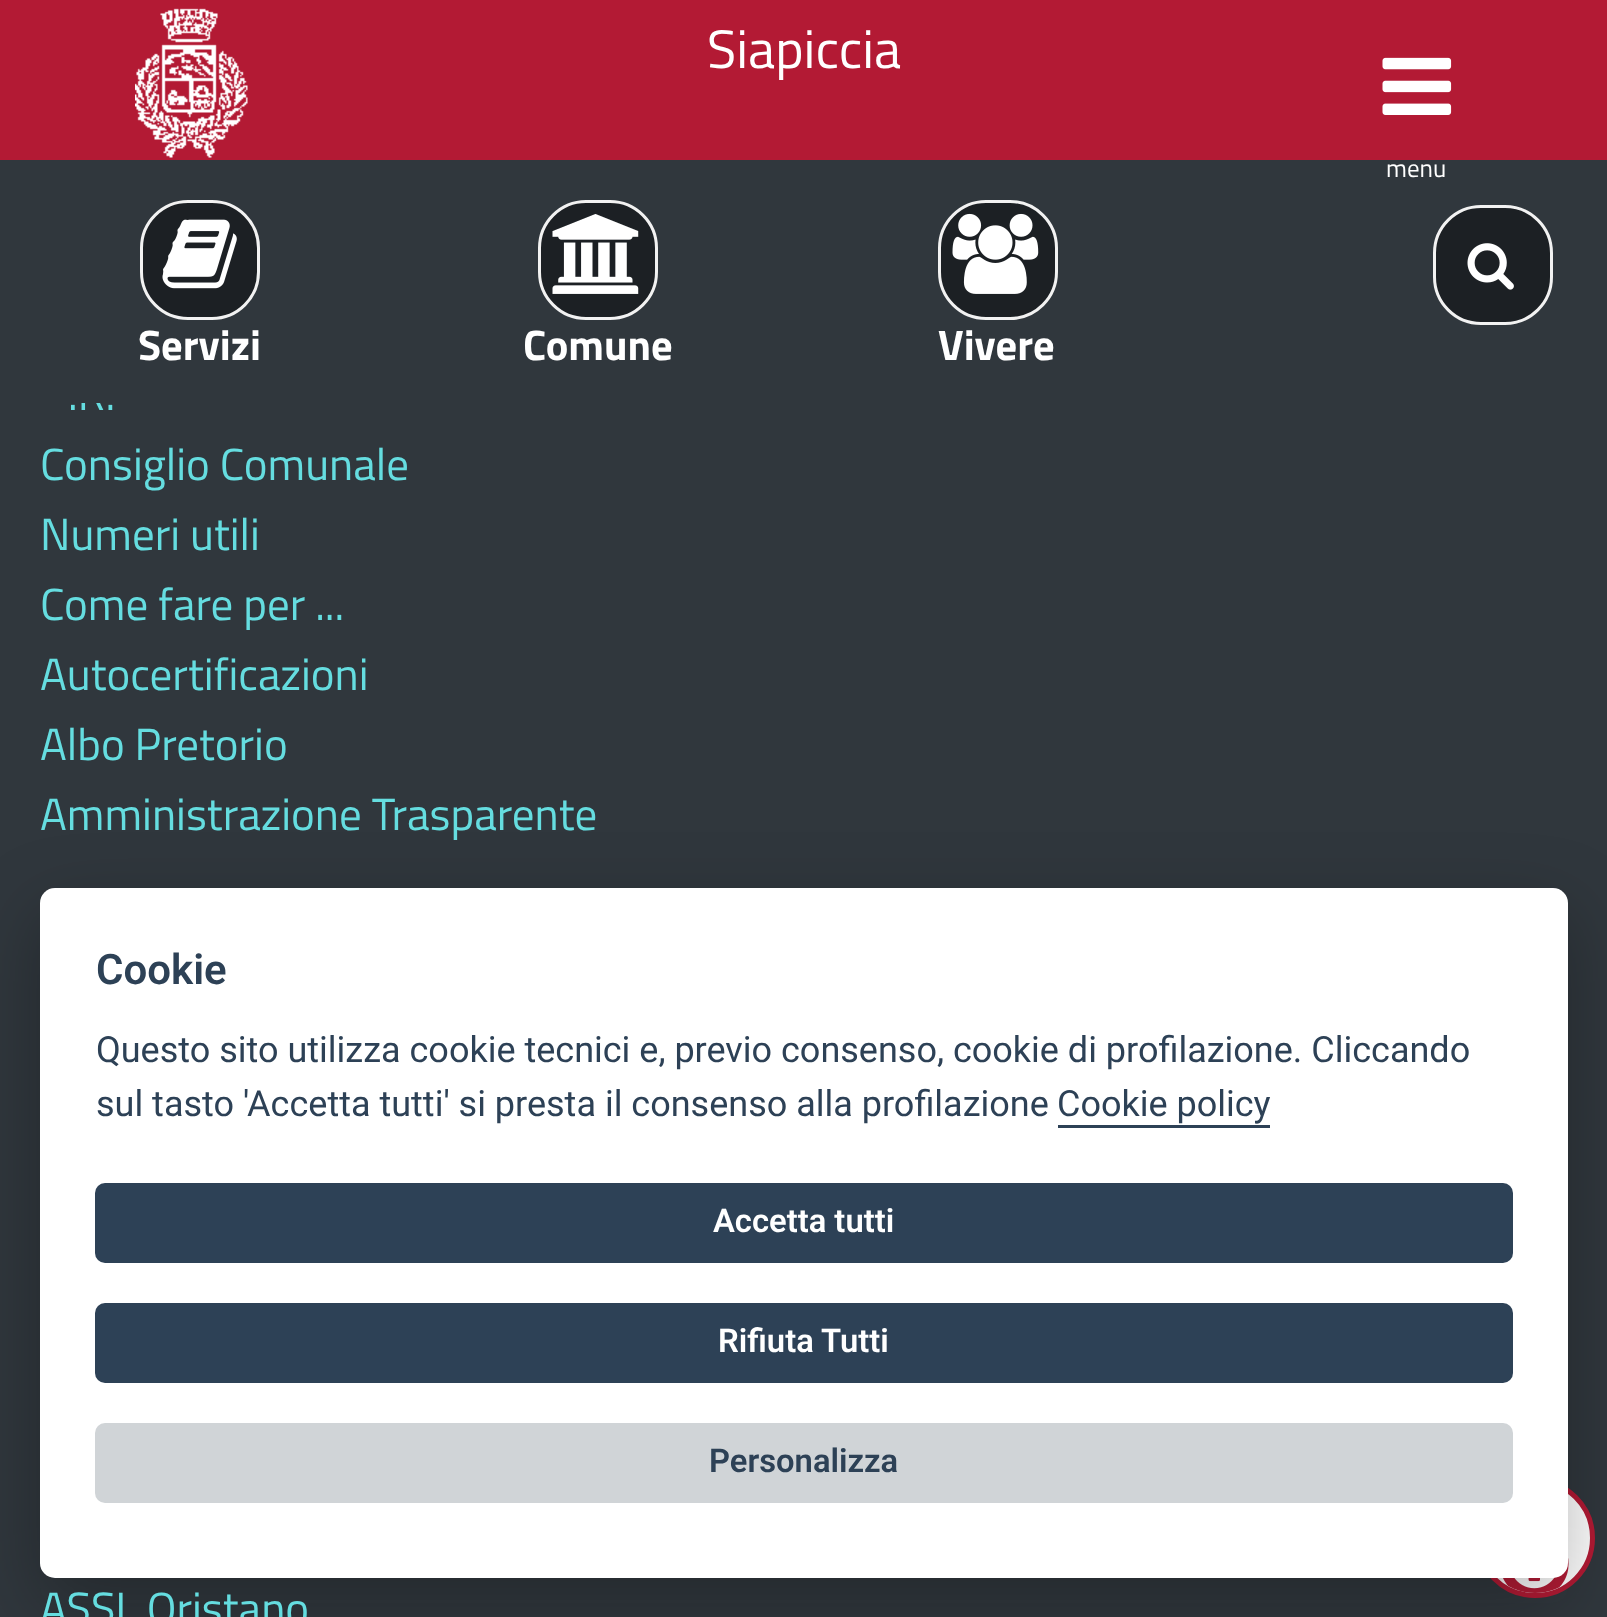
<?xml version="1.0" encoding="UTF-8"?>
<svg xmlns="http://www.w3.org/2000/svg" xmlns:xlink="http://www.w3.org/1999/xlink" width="1607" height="1617">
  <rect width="100%" height="100%" fill="#30373d" />
  <rect width="1607" height="160" fill="#b31a34" />
  <image x="135" y="8" width="113" height="150" xlink:href="image1.png" />
  <image x="1382" y="57" width="70" height="58" xlink:href="image2.png" />
  <rect x="1434.5" y="206.5" width="117" height="117" rx="46.5" fill="#1c2024" stroke="#f2f2f2" stroke-width="3" />
  <image x="1467" y="243" width="47" height="47" xlink:href="image3.png" />
  <rect x="141.5" y="201.5" width="117" height="117" rx="46.5" fill="#1c2024" stroke="#f2f2f2" stroke-width="3" />
  <image x="162" y="219" width="75" height="70" xlink:href="image4.png" />
  <rect x="539.5" y="201.5" width="117" height="117" rx="46.5" fill="#1c2024" stroke="#f2f2f2" stroke-width="3" />
  <image x="552" y="214" width="87" height="80" xlink:href="image5.png" />
  <rect x="939.5" y="201.5" width="117" height="117" rx="46.5" fill="#1c2024" stroke="#f2f2f2" stroke-width="3" />
  <image x="952" y="213" width="87" height="81" xlink:href="image6.png" />
  <circle cx="1535" cy="1538" r="57.5" fill="#fefefe" stroke="#b31a34" stroke-width="5" />
  <image x="1503" y="1558" width="66" height="35" xlink:href="image7.png" />
  <rect x="40" y="913" width="1528" height="690" rx="15" fill="#020203" fill-opacity="0.28" filter="blur(37.5px)" />
  <rect x="40" y="888" width="1528" height="690" rx="15" fill="#ffffff" />
  <rect x="1058" y="1125" width="212" height="3" fill="#2d4156" />
  <rect x="95" y="1183" width="1418" height="80" rx="10" fill="#2d4156" />
  <rect x="95" y="1303" width="1418" height="80" rx="10" fill="#2d4156" />
  <rect x="95" y="1423" width="1418" height="80" rx="10" fill="#d0d4d7" />
  <text x="707" y="68" style="font-family: Titillium Web; font-size: 54px; fill: #ffffff">Siapiccia</text>
  <text x="1386" y="177" style="font-family: Titillium Web; font-size: 25px; fill: #ffffff">menu</text>
  <text x="138" y="360" style="font-family: Titillium Web; font-size: 42.5px; font-weight: bold; fill: #ffffff">Servizi</text>
  <text x="523" y="360" style="font-family: Titillium Web; font-size: 42.5px; font-weight: bold; fill: #ffffff">Comune</text>
  <text x="938" y="360" style="font-family: Titillium Web; font-size: 42.5px; font-weight: bold; fill: #ffffff">Vivere</text>
  <text x="68" y="410" style="font-family: Titillium Web; font-size: 45px; fill: #65dde0">.R.</text>
  <rect x="81" y="378" width="23" height="25" fill="#30373d" />
  <text x="40" y="480" style="font-family: Titillium Web; font-size: 45px; fill: #65dde0">Consiglio Comunale</text>
  <text x="40" y="550" style="font-family: Titillium Web; font-size: 45px; fill: #65dde0">Numeri utili</text>
  <text x="40" y="620" style="font-family: Titillium Web; font-size: 45px; fill: #65dde0">Come fare per ...</text>
  <text x="40" y="690" style="font-family: Titillium Web; font-size: 45px; fill: #65dde0">Autocertificazioni</text>
  <text x="40" y="760" style="font-family: Titillium Web; font-size: 45px; fill: #65dde0">Albo Pretorio</text>
  <text x="40" y="830" style="font-family: Titillium Web; font-size: 45px; fill: #65dde0">Amministrazione Trasparente</text>
  <text x="40" y="1624" style="font-family: Titillium Web; font-size: 45px; fill: #65dde0">ASSL Oristano</text>
  <text x="96" y="984" style="font-family: Roboto; font-size: 42px; font-weight: 600; fill: #2d4156">Cookie</text>
  <text x="96" y="1062" style="font-family: Roboto; font-size: 36px; fill: #2d4156">Questo sito utilizza cookie tecnici e, previo consenso, cookie di profilazione. Cliccando</text>
  <text x="96" y="1116" style="font-family: Roboto; font-size: 36px; fill: #2d4156">sul tasto 'Accetta tutti' si presta il consenso alla profilazione</text>
  <text x="1057" y="1116" style="font-family: Roboto; font-size: 36px; fill: #2d4156">Cookie policy</text>
  <text x="713" y="1232" style="font-family: Roboto; font-size: 32.75px; font-weight: 600; fill: #ffffff">Accetta tutti</text>
  <text x="718" y="1352" style="font-family: Roboto; font-size: 32.75px; font-weight: 600; fill: #ffffff">Rifiuta Tutti</text>
  <text x="709" y="1472" style="font-family: Roboto; font-size: 32.75px; font-weight: 600; fill: #2d4156">Personalizza</text>
</svg>
